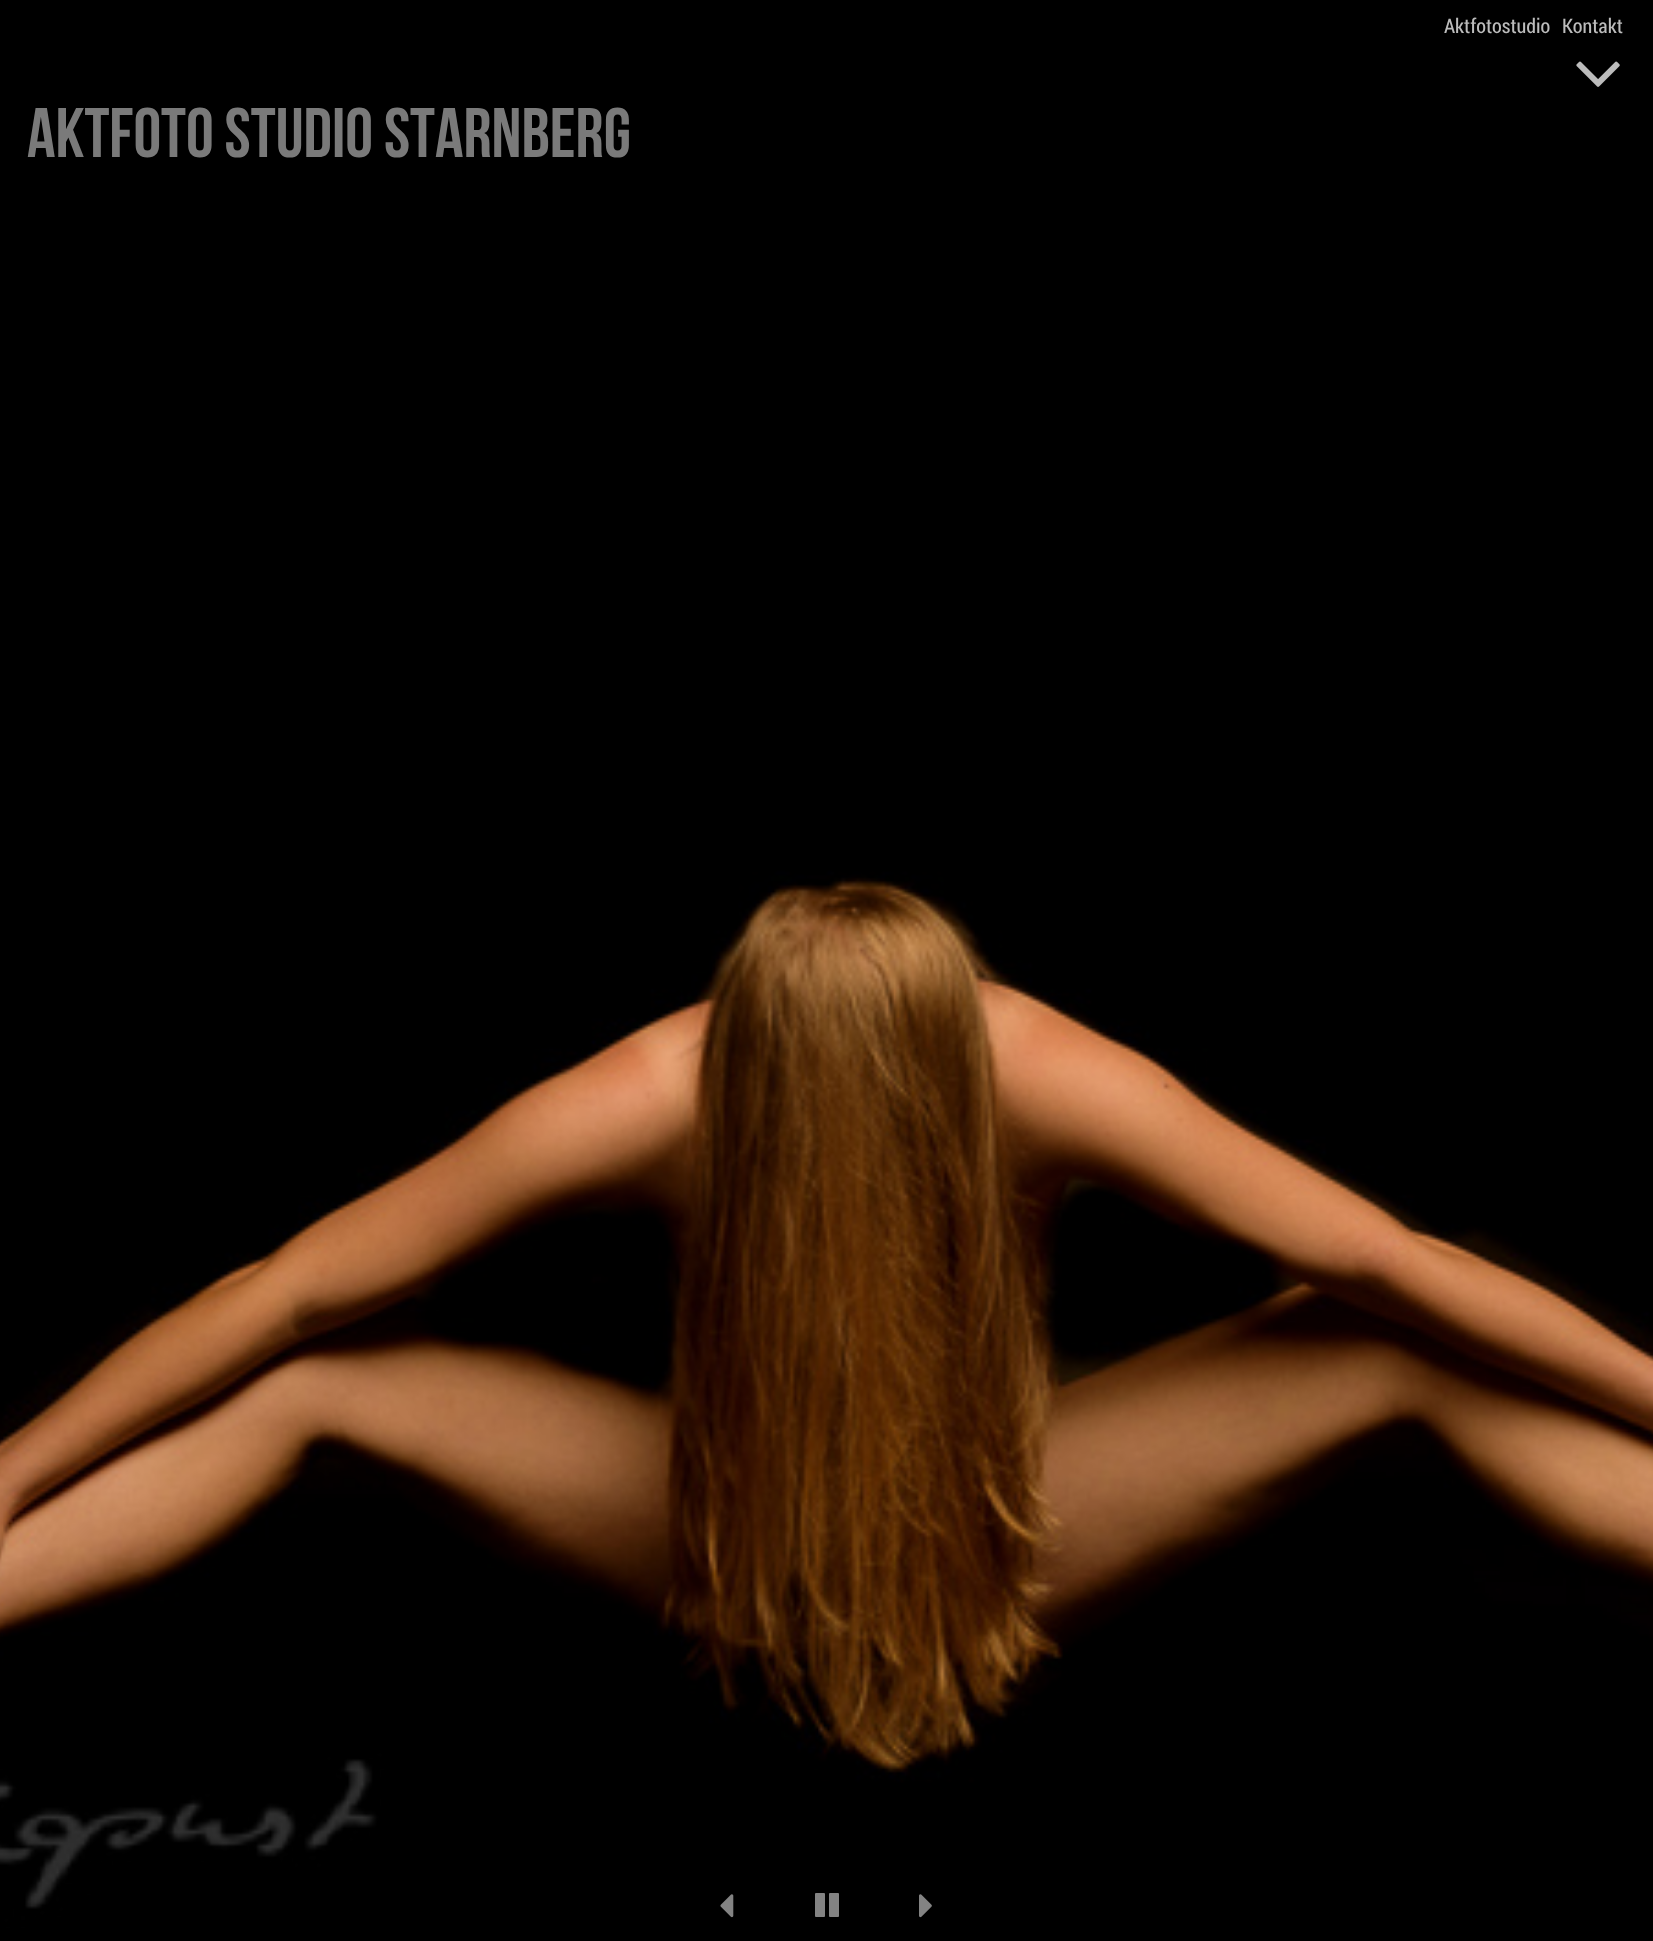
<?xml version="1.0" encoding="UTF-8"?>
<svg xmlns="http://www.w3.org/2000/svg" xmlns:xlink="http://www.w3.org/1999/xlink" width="1653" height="1941">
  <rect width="100%" height="100%" fill="#ffffff" />
  <image x="0" y="0" width="1653" height="1941" xlink:href="image1.png" />
  <image x="1576" y="61" width="44" height="26" xlink:href="image2.png" />
  <image x="720" y="1894" width="14" height="24" xlink:href="image3.png" />
  <image x="815" y="1893" width="24" height="24" xlink:href="image4.png" />
  <image x="919" y="1894" width="13" height="24" xlink:href="image5.png" />
  <text x="1444" y="33" style="font-family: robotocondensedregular; font-size: 20px; fill: #bcbcbc">Aktfotostudio</text>
  <text x="1562" y="33" style="font-family: robotocondensedregular; font-size: 20px; fill: #bcbcbc">Kontakt</text>
  <text x="27" y="157" style="font-family: Bebas Neue; font-size: 70px; fill: #7a7a7a">Aktfoto Studio Starnberg</text>
</svg>
